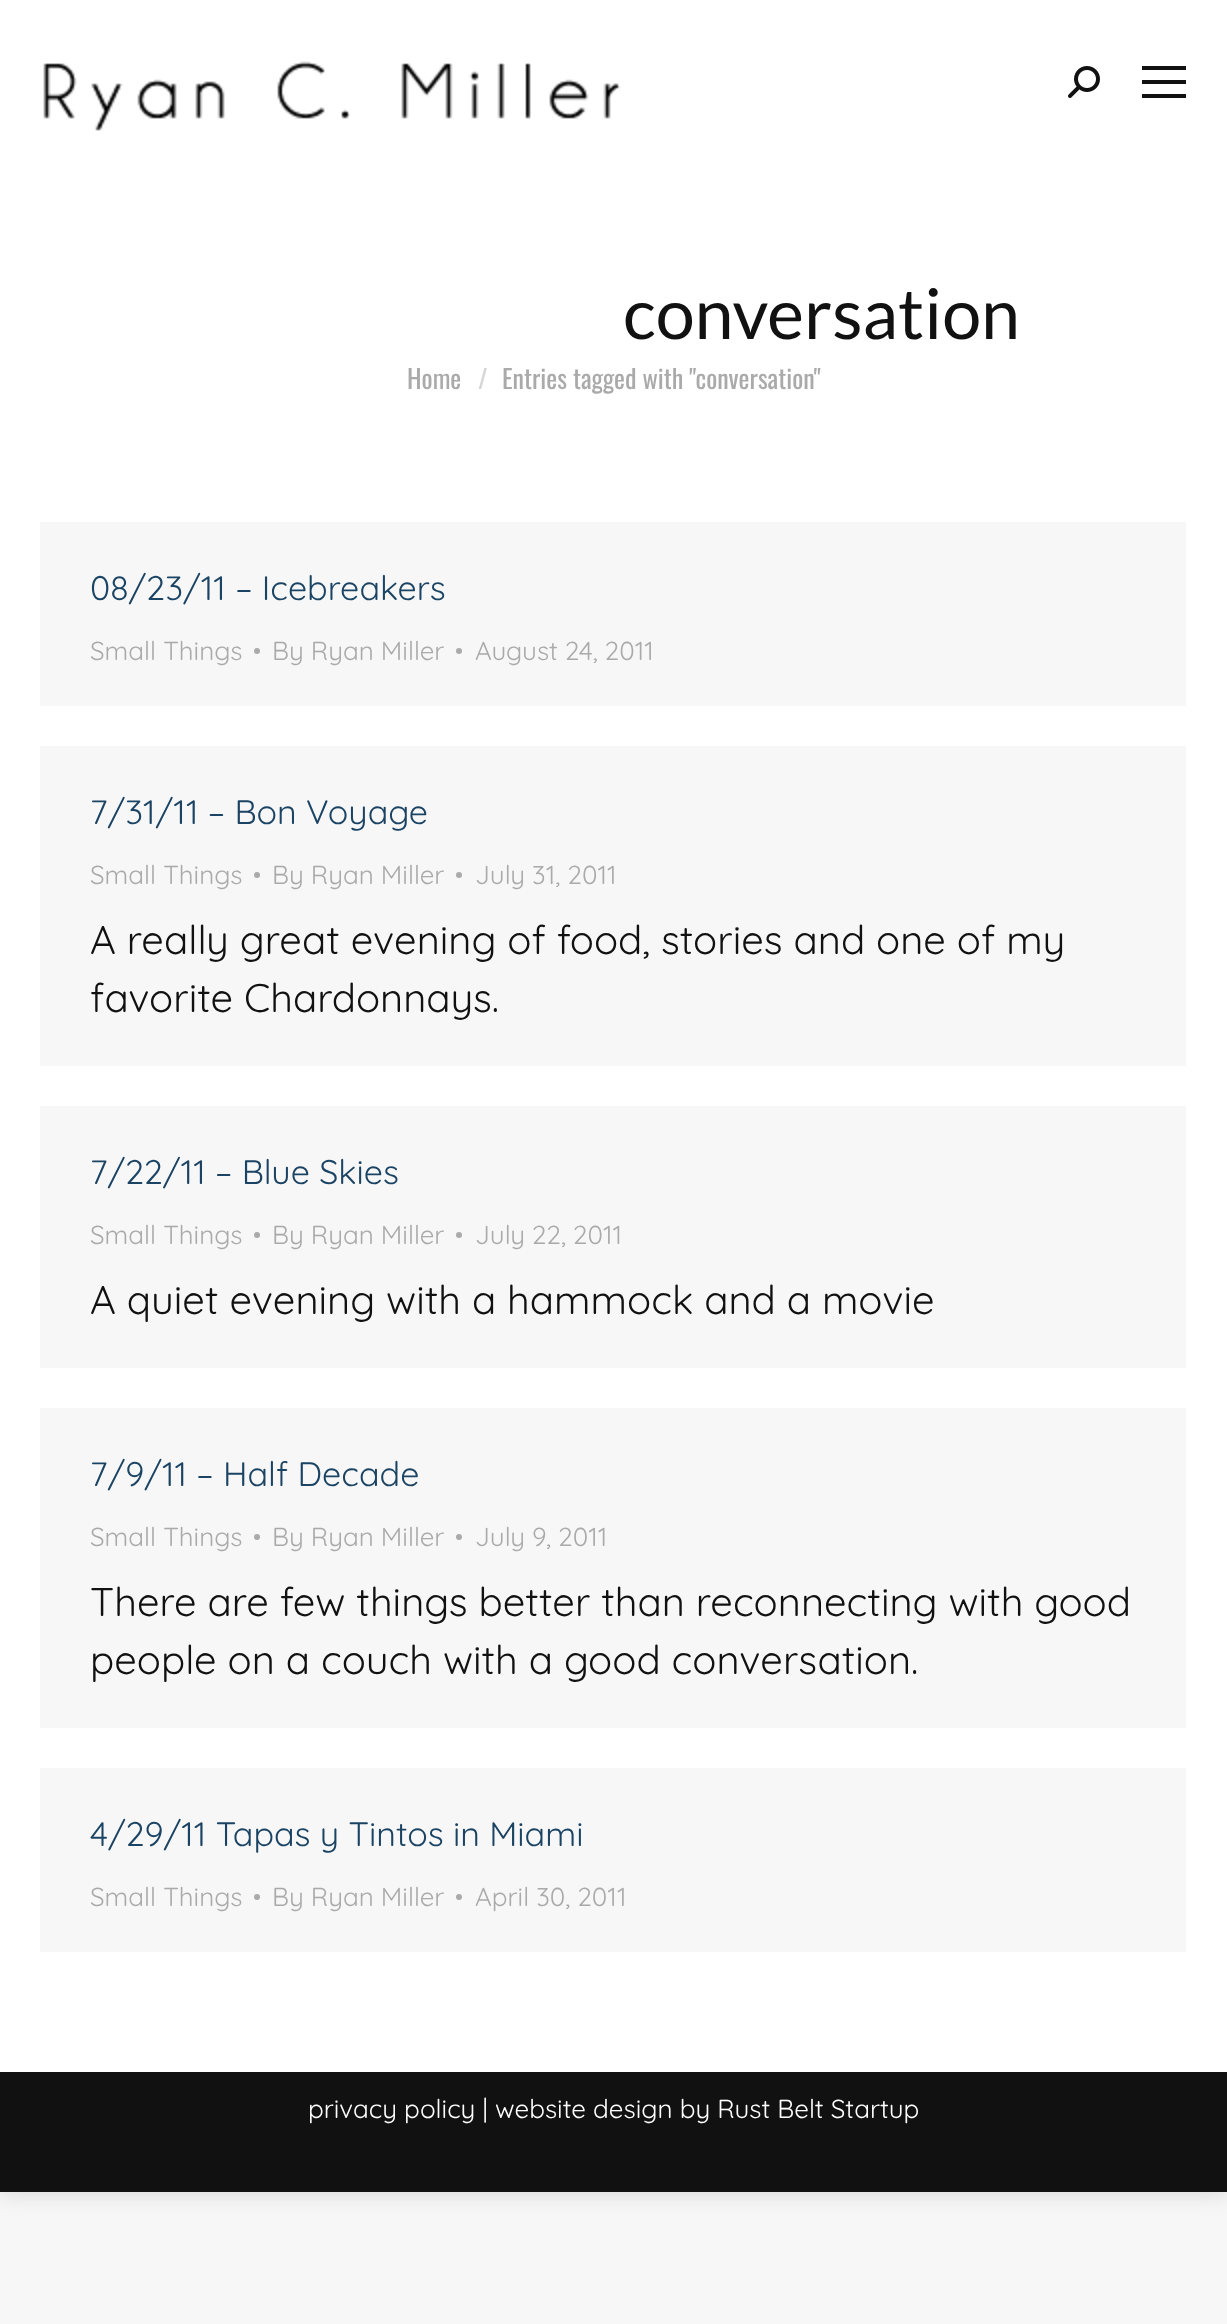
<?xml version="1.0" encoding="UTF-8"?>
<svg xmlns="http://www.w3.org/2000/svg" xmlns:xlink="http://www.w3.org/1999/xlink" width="1227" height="2324">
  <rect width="100%" height="100%" fill="#f7f7f7" />
  <rect width="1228" height="2192" fill="#000000" fill-opacity="0.15" filter="blur(12px)" />
  <rect width="1227" height="2072" fill="#ffffff" />
  <image x="43" y="61" width="578" height="70" xlink:href="image1.png" />
  <image x="1068" y="66" width="32" height="32" xlink:href="image2.png" />
  <rect x="1142" y="66" width="44" height="4" fill="#111111" />
  <rect x="1142" y="80" width="44" height="4" fill="#111111" />
  <rect x="1142" y="94" width="44" height="4" fill="#111111" />
  <rect x="40" y="522" width="1146" height="184" fill="#f7f7f7" />
  <circle cx="257" cy="651" r="3" fill="#aaaaaa" />
  <circle cx="459" cy="651" r="3" fill="#aaaaaa" />
  <rect x="40" y="746" width="1146" height="320" fill="#f7f7f7" />
  <circle cx="257" cy="875" r="3" fill="#aaaaaa" />
  <circle cx="459" cy="875" r="3" fill="#aaaaaa" />
  <rect x="40" y="1106" width="1146" height="262" fill="#f7f7f7" />
  <circle cx="257" cy="1235" r="3" fill="#aaaaaa" />
  <circle cx="459" cy="1235" r="3" fill="#aaaaaa" />
  <rect x="40" y="1408" width="1146" height="320" fill="#f7f7f7" />
  <circle cx="257" cy="1537" r="3" fill="#aaaaaa" />
  <circle cx="459" cy="1537" r="3" fill="#aaaaaa" />
  <rect x="40" y="1768" width="1146" height="184" fill="#f7f7f7" />
  <circle cx="257" cy="1897" r="3" fill="#aaaaaa" />
  <circle cx="459" cy="1897" r="3" fill="#aaaaaa" />
  <rect y="2072" width="1227" height="120" fill="#111111" />
  <text x="623" y="339" style="font-family: Lato; font-size: 70px; fill: #111111">conversation</text>
  <text x="407" y="389" style="font-family: Oswald; font-size: 26px; fill: #aaaaaa">Home</text>
  <text x="478" y="389" style="font-family: Oswald; font-size: 26px; fill: #d5d5d5">/</text>
  <text x="502" y="389" style="font-family: Oswald; font-size: 26px; fill: #aaaaaa">Entries tagged with "conversation"</text>
  <text x="90" y="600" style="font-family: Quicksand; font-size: 34px; fill: #1b4464">08/23/11 – Icebreakers</text>
  <text x="90" y="660" style="font-family: Quicksand; font-size: 26px; fill: #aaaaaa">Small Things</text>
  <text x="272" y="660" style="font-family: Quicksand; font-size: 26px; fill: #aaaaaa">By Ryan Miller</text>
  <text x="475" y="660" style="font-family: Quicksand; font-size: 26px; fill: #aaaaaa">August 24, 2011</text>
  <text x="90" y="824" style="font-family: Quicksand; font-size: 34px; fill: #1b4464">7/31/11 – Bon Voyage</text>
  <text x="90" y="884" style="font-family: Quicksand; font-size: 26px; fill: #aaaaaa">Small Things</text>
  <text x="272" y="884" style="font-family: Quicksand; font-size: 26px; fill: #aaaaaa">By Ryan Miller</text>
  <text x="475" y="884" style="font-family: Quicksand; font-size: 26px; fill: #aaaaaa">July 31, 2011</text>
  <text x="90" y="954" style="font-family: Quicksand; font-size: 40px; fill: #111111">A really great evening of food, stories and one of my</text>
  <text x="90" y="1012" style="font-family: Quicksand; font-size: 40px; fill: #111111">favorite Chardonnays.</text>
  <text x="90" y="1184" style="font-family: Quicksand; font-size: 34px; fill: #1b4464">7/22/11 – Blue Skies</text>
  <text x="90" y="1244" style="font-family: Quicksand; font-size: 26px; fill: #aaaaaa">Small Things</text>
  <text x="272" y="1244" style="font-family: Quicksand; font-size: 26px; fill: #aaaaaa">By Ryan Miller</text>
  <text x="475" y="1244" style="font-family: Quicksand; font-size: 26px; fill: #aaaaaa">July 22, 2011</text>
  <text x="90" y="1314" style="font-family: Quicksand; font-size: 40px; fill: #111111">A quiet evening with a hammock and a movie</text>
  <text x="90" y="1486" style="font-family: Quicksand; font-size: 34px; fill: #1b4464">7/9/11 – Half Decade</text>
  <text x="90" y="1546" style="font-family: Quicksand; font-size: 26px; fill: #aaaaaa">Small Things</text>
  <text x="272" y="1546" style="font-family: Quicksand; font-size: 26px; fill: #aaaaaa">By Ryan Miller</text>
  <text x="475" y="1546" style="font-family: Quicksand; font-size: 26px; fill: #aaaaaa">July 9, 2011</text>
  <text x="90" y="1616" style="font-family: Quicksand; font-size: 40px; fill: #111111">There are few things better than reconnecting with good</text>
  <text x="90" y="1674" style="font-family: Quicksand; font-size: 40px; fill: #111111">people on a couch with a good conversation.</text>
  <text x="90" y="1846" style="font-family: Quicksand; font-size: 34px; fill: #1b4464">4/29/11 Tapas y Tintos in Miami</text>
  <text x="90" y="1906" style="font-family: Quicksand; font-size: 26px; fill: #aaaaaa">Small Things</text>
  <text x="272" y="1906" style="font-family: Quicksand; font-size: 26px; fill: #aaaaaa">By Ryan Miller</text>
  <text x="475" y="1906" style="font-family: Quicksand; font-size: 26px; fill: #aaaaaa">April 30, 2011</text>
  <text x="308" y="2118" style="font-family: Quicksand; font-size: 26px; fill: #ffffff">privacy policy | website design by Rust Belt Startup</text>
</svg>
